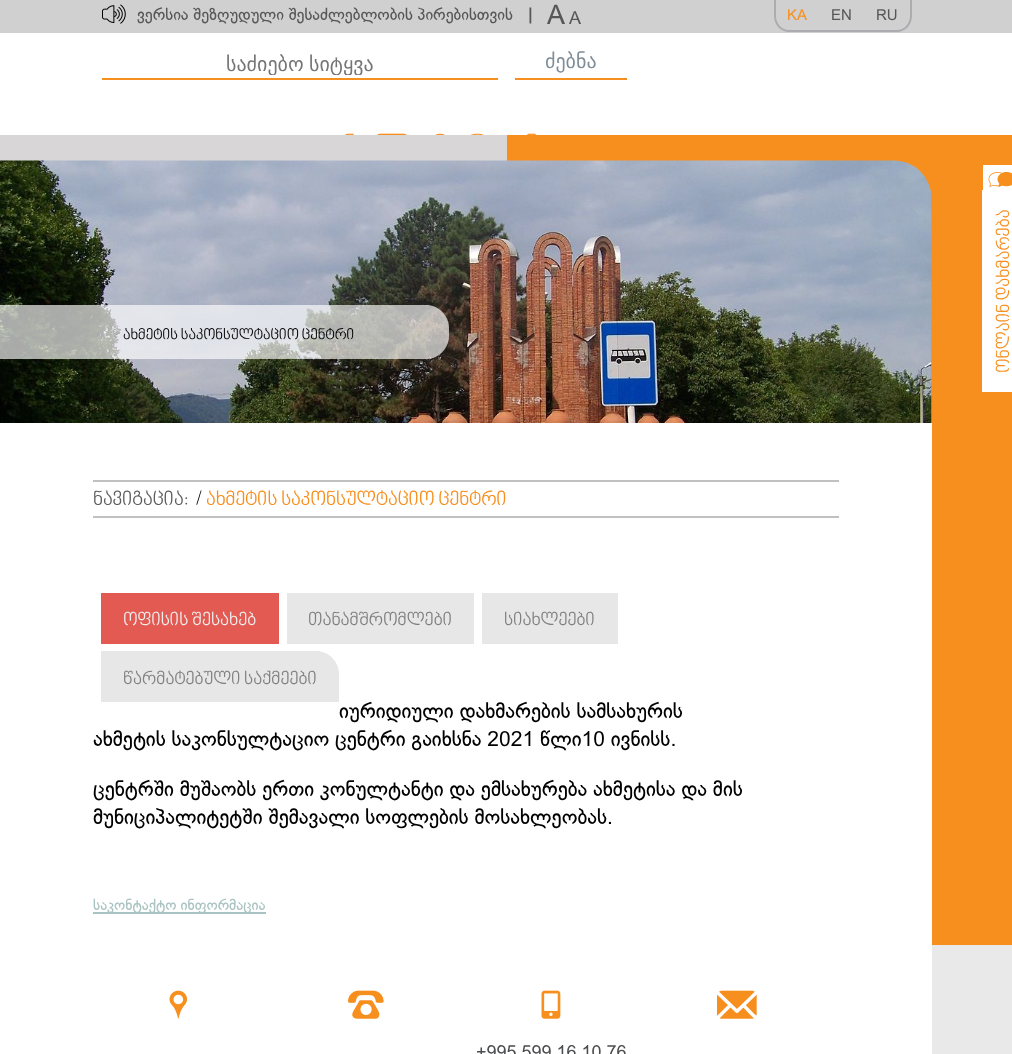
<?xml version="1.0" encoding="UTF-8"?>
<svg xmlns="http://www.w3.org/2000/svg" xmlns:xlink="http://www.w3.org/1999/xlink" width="1012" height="1054">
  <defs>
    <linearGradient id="g1" gradientUnits="userSpaceOnUse" x1="506" y1="135" x2="506" y2="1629"><stop offset="0" stop-color="#d8d6d6" /><stop offset="1" stop-color="#d2d0d0" /></linearGradient>
    <clipPath id="clip1"><rect x="102" y="53" width="396" height="22" /></clipPath>
  </defs>
  <rect width="100%" height="100%" fill="#ffffff" />
  <rect width="1012" height="33" fill="#d0d0d0" />
  <image x="102" y="4" width="24" height="20" xlink:href="image1.png" />
  <path d="M 774 0 h 138 v 16 c 0 9 -7 16 -15 16 h -108 c -8 0 -15 -7 -15 -16 z m 2 0 h 134 v 16 c 0 8 -6 14 -13 14 h -108 c -7 0 -13 -6 -13 -14 z" fill="#acacb0" fill-rule="evenodd" />
  <rect x="102" y="78" width="396" height="2" fill="#f78f1e" />
  <rect x="515" y="78" width="112" height="2" fill="#f78f1e" />
  <image x="344" y="133" width="10" height="2" xlink:href="image2.png" />
  <image x="376" y="133" width="31" height="2" xlink:href="image3.png" />
  <image x="435" y="133" width="10" height="2" xlink:href="image4.png" />
  <image x="470" y="133" width="14" height="2" xlink:href="image5.png" />
  <image x="527" y="133" width="9" height="2" xlink:href="image6.png" />
  <rect y="135" width="507" height="26" fill="url(#g1)" />
  <rect x="507" y="135" width="505" height="810" fill="#f78f1e" />
  <image x="0" y="160" width="932" height="263" xlink:href="image7.png" />
  <path d="M 0 305 h 426 c 12.5 0 23 10.5 23 23 v 8 c 0 12.5 -10.5 23 -23 23 h -426 z" fill="#ffffff" fill-opacity="0.66" />
  <rect x="983" y="165" width="29" height="25" fill="#ffffff" />
  <image x="988" y="171" width="15" height="16" xlink:href="image8.png" />
  <image x="997" y="171" width="15" height="16" xlink:href="image9.png" />
  <rect x="982" y="190" width="30" height="202" fill="#ffffff" />
  <rect x="932" y="945" width="80" height="109" fill="#eae9e9" />
  <rect x="507" y="423" width="425" height="522" fill="#ffffff" />
  <rect x="93" y="480" width="746" height="2" fill="#c0c0c1" />
  <rect x="93" y="516" width="746" height="2" fill="#c0c0c1" />
  <rect x="101" y="593" width="178" height="51" fill="#e35a53" />
  <rect x="287" y="593" width="187" height="51" fill="#e8e7e7" />
  <rect x="482" y="593" width="136" height="51" fill="#e8e7e7" />
  <path d="M 101 651 h 215 c 12.5 0 23 10.5 23 23 v 28 h -238 z" fill="#e8e7e7" />
  <rect x="93" y="912" width="173" height="2" fill="#a8c3c1" />
  <image x="169" y="990" width="19" height="29" xlink:href="image10.png" />
  <image x="348" y="990" width="36" height="29" xlink:href="image11.png" />
  <image x="717" y="990" width="40" height="29" xlink:href="image12.png" />
  <image x="541" y="990" width="20" height="29" xlink:href="image13.png" />
  <text x="137" y="20" style="font-family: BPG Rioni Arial; font-size: 16.5px; fill: #575759">ვერსია შეზღუდული შესაძლებლობის პირებისთვის</text>
  <text x="528" y="20" style="font-family: BPG Rioni Arial; font-size: 16.5px; font-weight: bold; fill: #575759">|</text>
  <text x="547" y="24" style="font-family: BPG Rioni Arial; font-size: 27px; fill: #575759">A</text>
  <text x="569" y="24" style="font-family: BPG Rioni Arial; font-size: 18px; fill: #575759">A</text>
  <text x="787" y="20" style="font-family: BPG Rioni Arial; font-size: 15px; fill: #f78f1e">KA</text>
  <text x="831" y="20" style="font-family: BPG Rioni Arial; font-size: 15px; fill: #575759">EN</text>
  <text x="876" y="20" style="font-family: BPG Rioni Arial; font-size: 15px; fill: #575759">RU</text>
  <g clip-path="url(#clip1)">
    <text x="226" y="71" word-spacing="-1" style="font-family: DejaVu Sans; font-size: 20px; fill: #757575">საძიებო სიტყვა</text>
  </g>
  <text x="545" y="68" style="font-family: DejaVu Sans; font-size: 20px; fill: #7f8d99">ძებნა</text>
  <text x="123" y="340" style="font-family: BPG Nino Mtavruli; font-size: 15px; fill: #000000">ახმეტის საკონსულტაციო ცენტრი</text>
  <text x="1010" y="373" transform="rotate(-90 1010 373)" style="font-family: BPG Nino Mtavruli; font-size: 18px; fill: #f78f1e">ონლაინ დახმარება</text>
  <text x="93" y="506" style="font-family: BPG Nino Mtavruli; font-size: 19.5px; fill: #5d5d5f">ნავიგაცია:</text>
  <text x="196" y="506" style="font-family: BPG Nino Mtavruli; font-size: 19.5px; fill: #000000">/</text>
  <text x="206" y="506" style="font-family: BPG Nino Mtavruli; font-size: 19.5px; fill: #f78f1e">ახმეტის საკონსულტაციო ცენტრი</text>
  <text x="123" y="626" style="font-family: BPG Nino Mtavruli; font-size: 18px; fill: #eeeeee">ოფისის შესახებ</text>
  <text x="308" y="626" style="font-family: BPG Nino Mtavruli; font-size: 18px; fill: #808080">თანამშრომლები</text>
  <text x="504" y="626" style="font-family: BPG Nino Mtavruli; font-size: 18px; fill: #808080">სიახლეები</text>
  <text x="123" y="685" style="font-family: BPG Nino Mtavruli; font-size: 18px; fill: #808080">წარმატებული საქმეები</text>
  <text x="339" y="718" style="font-family: BPG Rioni Arial; font-size: 21px; fill: #000000">იურიდიული დახმარების სამსახურის</text>
  <text x="93" y="746" style="font-family: BPG Rioni Arial; font-size: 21px; fill: #000000">ახმეტის საკონსულტაციო ცენტრი გაიხსნა 2021 წლი10 ივნისს.</text>
  <text x="93" y="796" style="font-family: BPG Rioni Arial; font-size: 21px; fill: #000000">ცენტრში მუშაობს ერთი კონულტანტი და ემსახურება ახმეტისა და მის</text>
  <text x="93" y="824" style="font-family: BPG Rioni Arial; font-size: 21px; fill: #000000">მუნიციპალიტეტში შემავალი სოფლების მოსახლეობას.</text>
  <text x="93" y="910" style="font-family: BPG Rioni Arial; font-size: 15px; fill: #a8c3c1">საკონტაქტო ინფორმაცია</text>
  <text x="476" y="1058" style="font-family: BPG Rioni Arial; font-size: 18px; fill: #4c4d4f">+995 599 16 10 76</text>
</svg>
